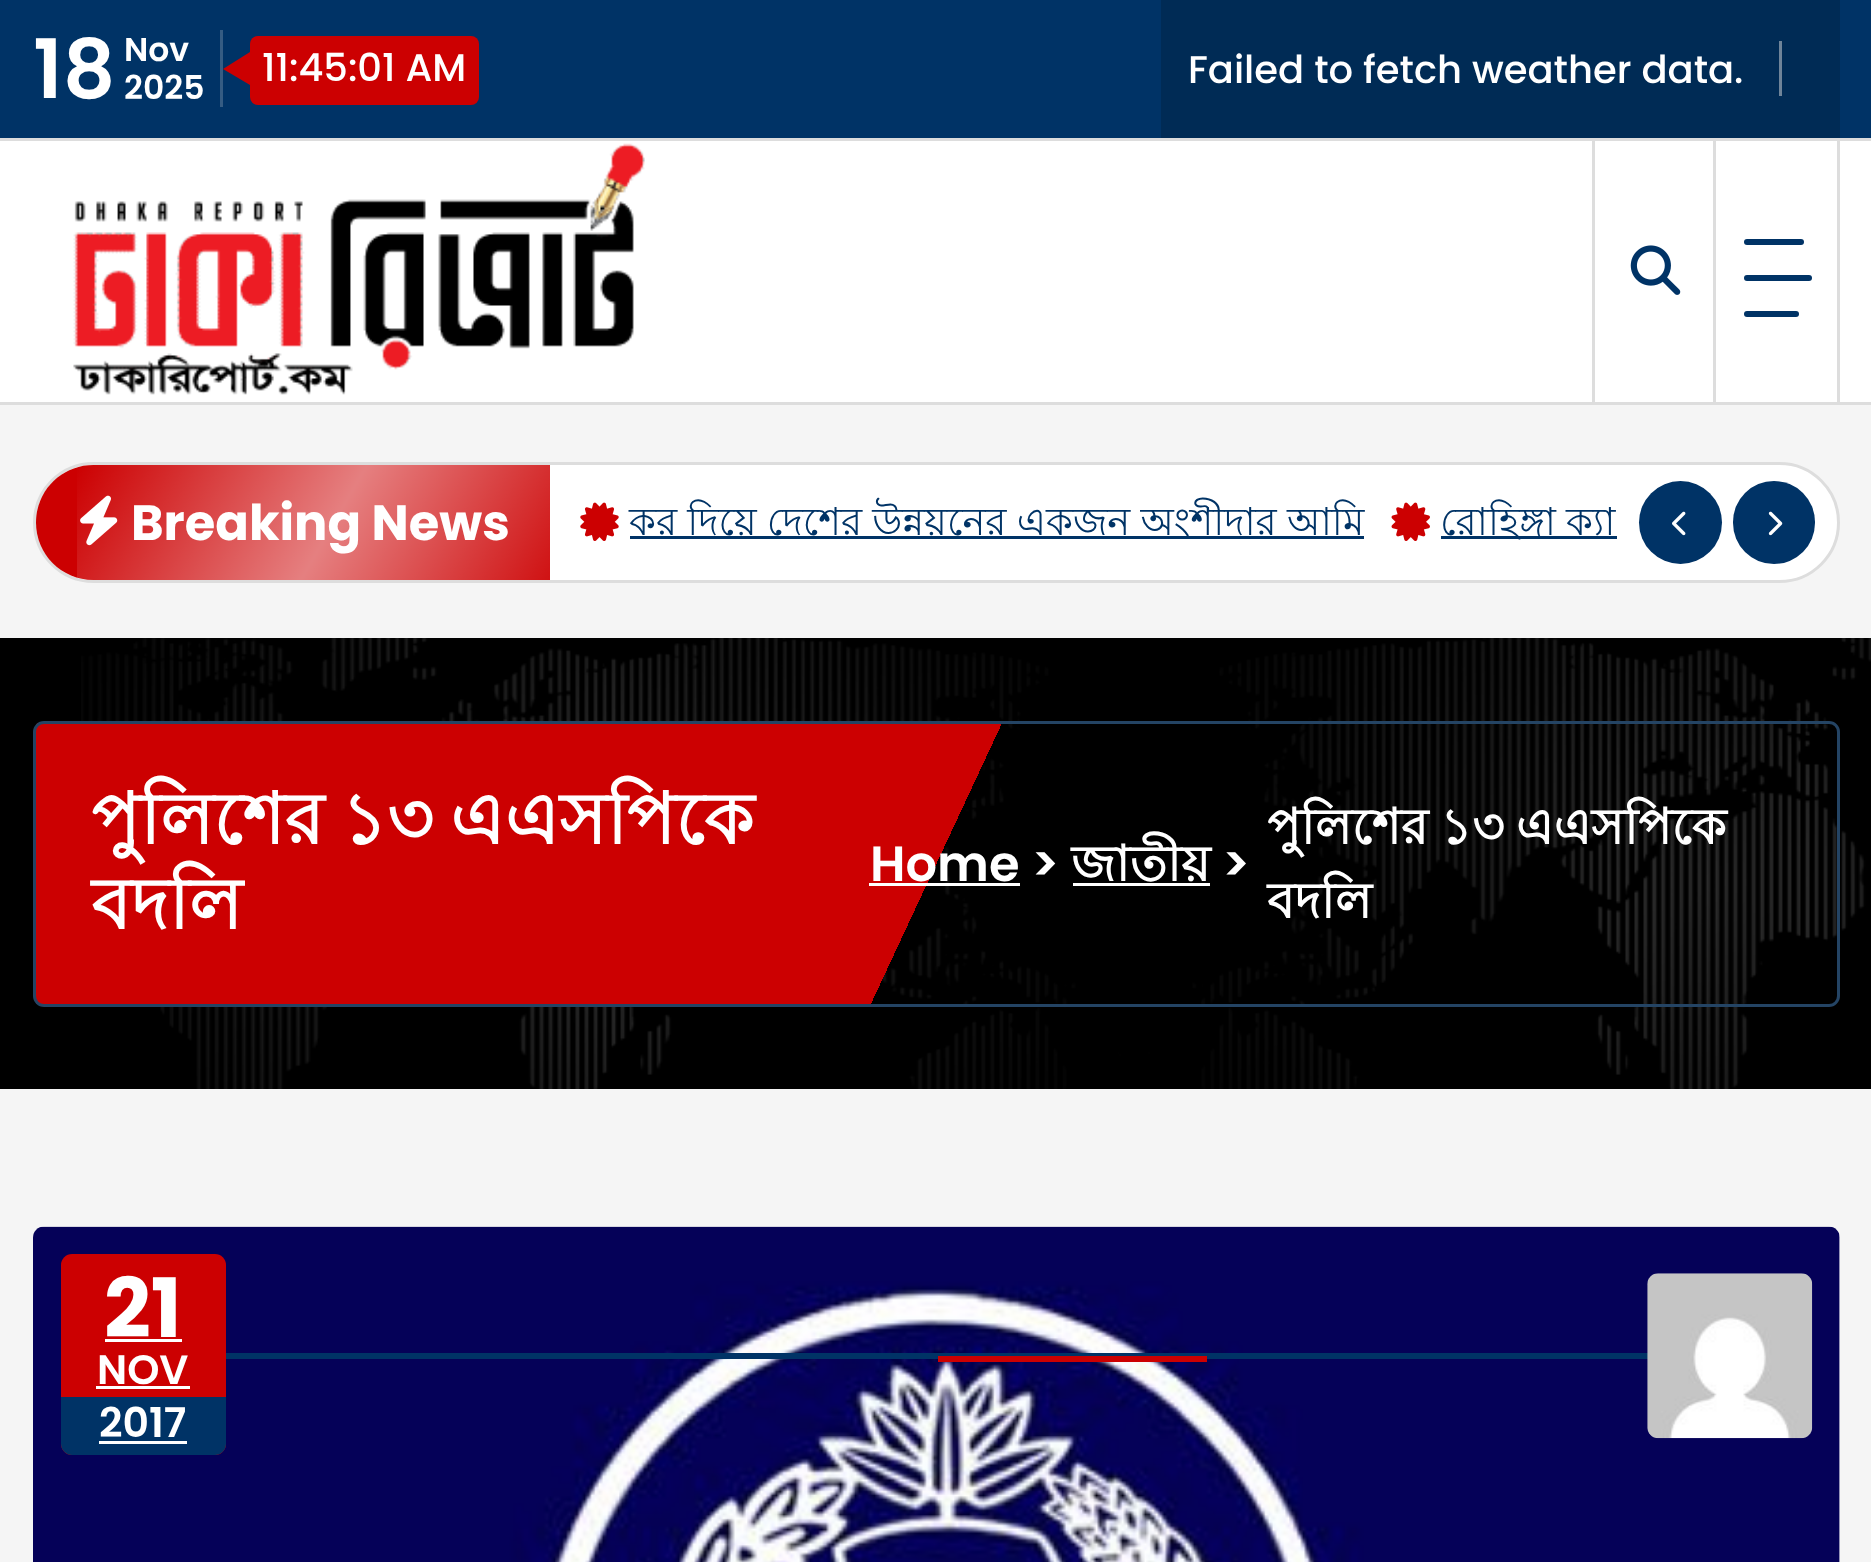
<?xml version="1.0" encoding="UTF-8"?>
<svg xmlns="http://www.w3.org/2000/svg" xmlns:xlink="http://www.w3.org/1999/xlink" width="1871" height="1562">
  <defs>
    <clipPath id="clip1"><rect x="33" y="721" width="1807" height="286" rx="11" /></clipPath>
    <linearGradient id="g1" gradientUnits="userSpaceOnUse" x1="143" y1="493" x2="1730" y2="1234"><stop offset="0.5" stop-color="#cc0001" /><stop offset="0.5" stop-color="#cc0001" stop-opacity="0" /></linearGradient>
    <clipPath id="clip2"><rect x="36" y="465" width="1801" height="115" rx="57.5" /></clipPath>
    <linearGradient id="g2" gradientUnits="userSpaceOnUse" x1="116" y1="397" x2="552" y2="648"><stop offset="0" stop-color="#ffffff" stop-opacity="0" /><stop offset="0.5" stop-color="#ffffff" stop-opacity="0.5" /><stop offset="1" stop-color="#ffffff" stop-opacity="0" /></linearGradient>
  </defs>
  <rect width="100%" height="100%" fill="#f5f5f5" />
  <rect width="1871" height="138" fill="#003366" />
  <rect x="220" y="30" width="3" height="77" fill="#355c83" />
  <rect x="250" y="36" width="229" height="69" rx="8" fill="#cc0001" />
  <path d="M 250 52 v 33 l -27 -16 z" fill="#cc0001" />
  <rect x="1161" width="679" height="138" fill="#002b55" />
  <rect x="1779" y="41" width="3" height="55" fill="#6f8499" />
  <rect y="141" width="1871" height="261" fill="#ffffff" />
  <rect y="138" width="1871" height="3" fill="#dddddd" />
  <rect y="402" width="1871" height="3" fill="#dddddd" />
  <image x="73" y="143" width="572" height="252" xlink:href="image1.png" />
  <rect x="1713" y="140" width="3" height="262" fill="#dddddd" />
  <rect x="1592" y="140" width="3" height="262" fill="#dddddd" />
  <image x="1630" y="245" width="51" height="50" xlink:href="image2.png" />
  <rect x="1837" y="140" width="3" height="262" fill="#dddddd" />
  <rect x="1744" y="239" width="60" height="6" rx="3" fill="#003366" />
  <rect x="1744" y="275" width="68" height="6" rx="3" fill="#003366" />
  <rect x="1744" y="311" width="55" height="6" rx="3" fill="#003366" />
  <rect x="34.5" y="463.5" width="1804" height="118" rx="59" fill="#ffffff" stroke="#dddddd" stroke-width="3" />
  <path d="M 93.5 465 h 456.5 v 115 h -456.5 c -32 0 -57.5 -25.5 -57.5 -57.5 c 0 -32 25.5 -57.5 57.5 -57.5 z" fill="#cc0001" />
  <image x="80" y="495" width="38" height="51" xlink:href="image3.png" />
  <image x="580" y="502" width="39" height="39" xlink:href="image4.png" />
  <rect x="630" y="536" width="734" height="3" fill="#003366" />
  <image x="1391" y="502" width="39" height="39" xlink:href="image5.png" />
  <rect x="1441" y="536" width="176" height="3" fill="#003366" />
  <circle cx="1680.5" cy="522.5" r="41.5" fill="#003366" />
  <image x="1672" y="511" width="14" height="25" xlink:href="image6.png" />
  <rect x="1733" y="481" width="82" height="83" rx="41" fill="#003366" />
  <image x="1768" y="511" width="15" height="25" xlink:href="image7.png" />
  <rect y="638" width="1871" height="451" fill="#000000" />
  <image x="81" y="638" width="1790" height="451" xlink:href="image8.png" />
  <g clip-path="url(#clip1)">
    <rect x="36" y="723" width="965" height="281" fill="url(#g1)" />
  </g>
  <rect x="34.5" y="722.5" width="1804" height="283" rx="9.5" fill="none" stroke="#244464" stroke-width="3" />
  <rect x="869" y="883" width="151" height="3" fill="#ffffff" />
  <rect x="1073" y="883" width="137" height="3" fill="#ffffff" />
  <rect x="33" y="1227" width="1807" height="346" rx="11" fill="#ffffff" />
  <image x="33" y="1226" width="1807" height="336" xlink:href="image9.png" />
  <rect x="61" y="1254" width="165" height="201" rx="11" fill="#cc0001" />
  <rect x="105" y="1339" width="77" height="3" fill="#ffffff" />
  <rect x="96" y="1386" width="94" height="3" fill="#ffffff" />
  <path d="M 61 1397 h 165 v 47 c 0 6 -5 11 -11 11 h -143 c -6 0 -11 -5 -11 -11 z" fill="#003366" />
  <rect x="99" y="1441" width="88" height="3" fill="#ffffff" />
  <rect x="226" y="1353" width="1422" height="6" fill="#003366" />
  <image x="1647" y="1273" width="166" height="166" xlink:href="image10.png" />
  <rect x="938" y="1356" width="269" height="6" fill="#cc0001" />
  <text x="33" y="98" style="font-family: Poppins; font-size: 82px; font-weight: 600; fill: #ffffff">18</text>
  <text x="124" y="61" style="font-family: Poppins; font-size: 33px; font-weight: 600; fill: #ffffff">Nov</text>
  <text x="124" y="99" style="font-family: Poppins; font-size: 33px; font-weight: 600; fill: #ffffff">2025</text>
  <text x="262" y="81" style="font-family: Poppins; font-size: 38.5px; font-weight: 500; fill: #ffffff">11:45:01 AM</text>
  <text x="1188" y="83" style="font-family: Poppins; font-size: 38.5px; font-weight: 500; fill: #ffffff">Failed to fetch weather data.</text>
  <text x="131" y="540" style="font-family: Poppins; font-size: 49.5px; font-weight: bold; fill: #ffffff">Breaking News</text>
  <g clip-path="url(#clip2)">
    <rect x="77" y="465" width="473" height="115" fill="url(#g2)" />
  </g>
  <text x="629" y="535" word-spacing="-0.5" style="font-family: Lohit Bengali; font-size: 38.5px; fill: #003366">কর দিয়ে দেশের উন্নয়নের একজন অংশীদার আমি</text>
  <text x="1440" y="535" word-spacing="-0.5" style="font-family: Lohit Bengali; font-size: 38.5px; fill: #003366">রোহিঙ্গা ক্যা</text>
  <text x="91" y="844" word-spacing="-3" style="font-family: Lohit Bengali; font-size: 71.5px; font-weight: bold; fill: #ffffff">পুলিশের ১৩ এএসপিকে</text>
  <text x="91" y="929" style="font-family: Lohit Bengali; font-size: 71.5px; font-weight: bold; fill: #ffffff">বদলি</text>
  <text x="870" y="881" style="font-family: Poppins; font-size: 49.5px; font-weight: 600; fill: #ffffff">Home &gt;</text>
  <text x="1071" y="881" style="font-family: Lohit Bengali; font-size: 49.5px; font-weight: bold; fill: #ffffff">জাতীয়</text>
  <text x="1222" y="881" style="font-family: Poppins; font-size: 49.5px; font-weight: 600; fill: #ffffff">&gt;</text>
  <text x="1267" y="844" word-spacing="-2" style="font-family: Lohit Bengali; font-size: 49.5px; font-weight: bold; fill: #ffffff">পুলিশের ১৩ এএসপিকে</text>
  <text x="1267" y="918" style="font-family: Lohit Bengali; font-size: 49.5px; font-weight: bold; fill: #ffffff">বদলি</text>
  <text x="104" y="1337" style="font-family: Poppins; font-size: 82px; font-weight: bold; fill: #ffffff">21</text>
  <text x="97" y="1384" style="font-family: Poppins; font-size: 41px; font-weight: 600; fill: #ffffff">NOV</text>
  <text x="99" y="1437" style="font-family: Poppins; font-size: 41px; font-weight: 600; fill: #ffffff">2017</text>
</svg>
